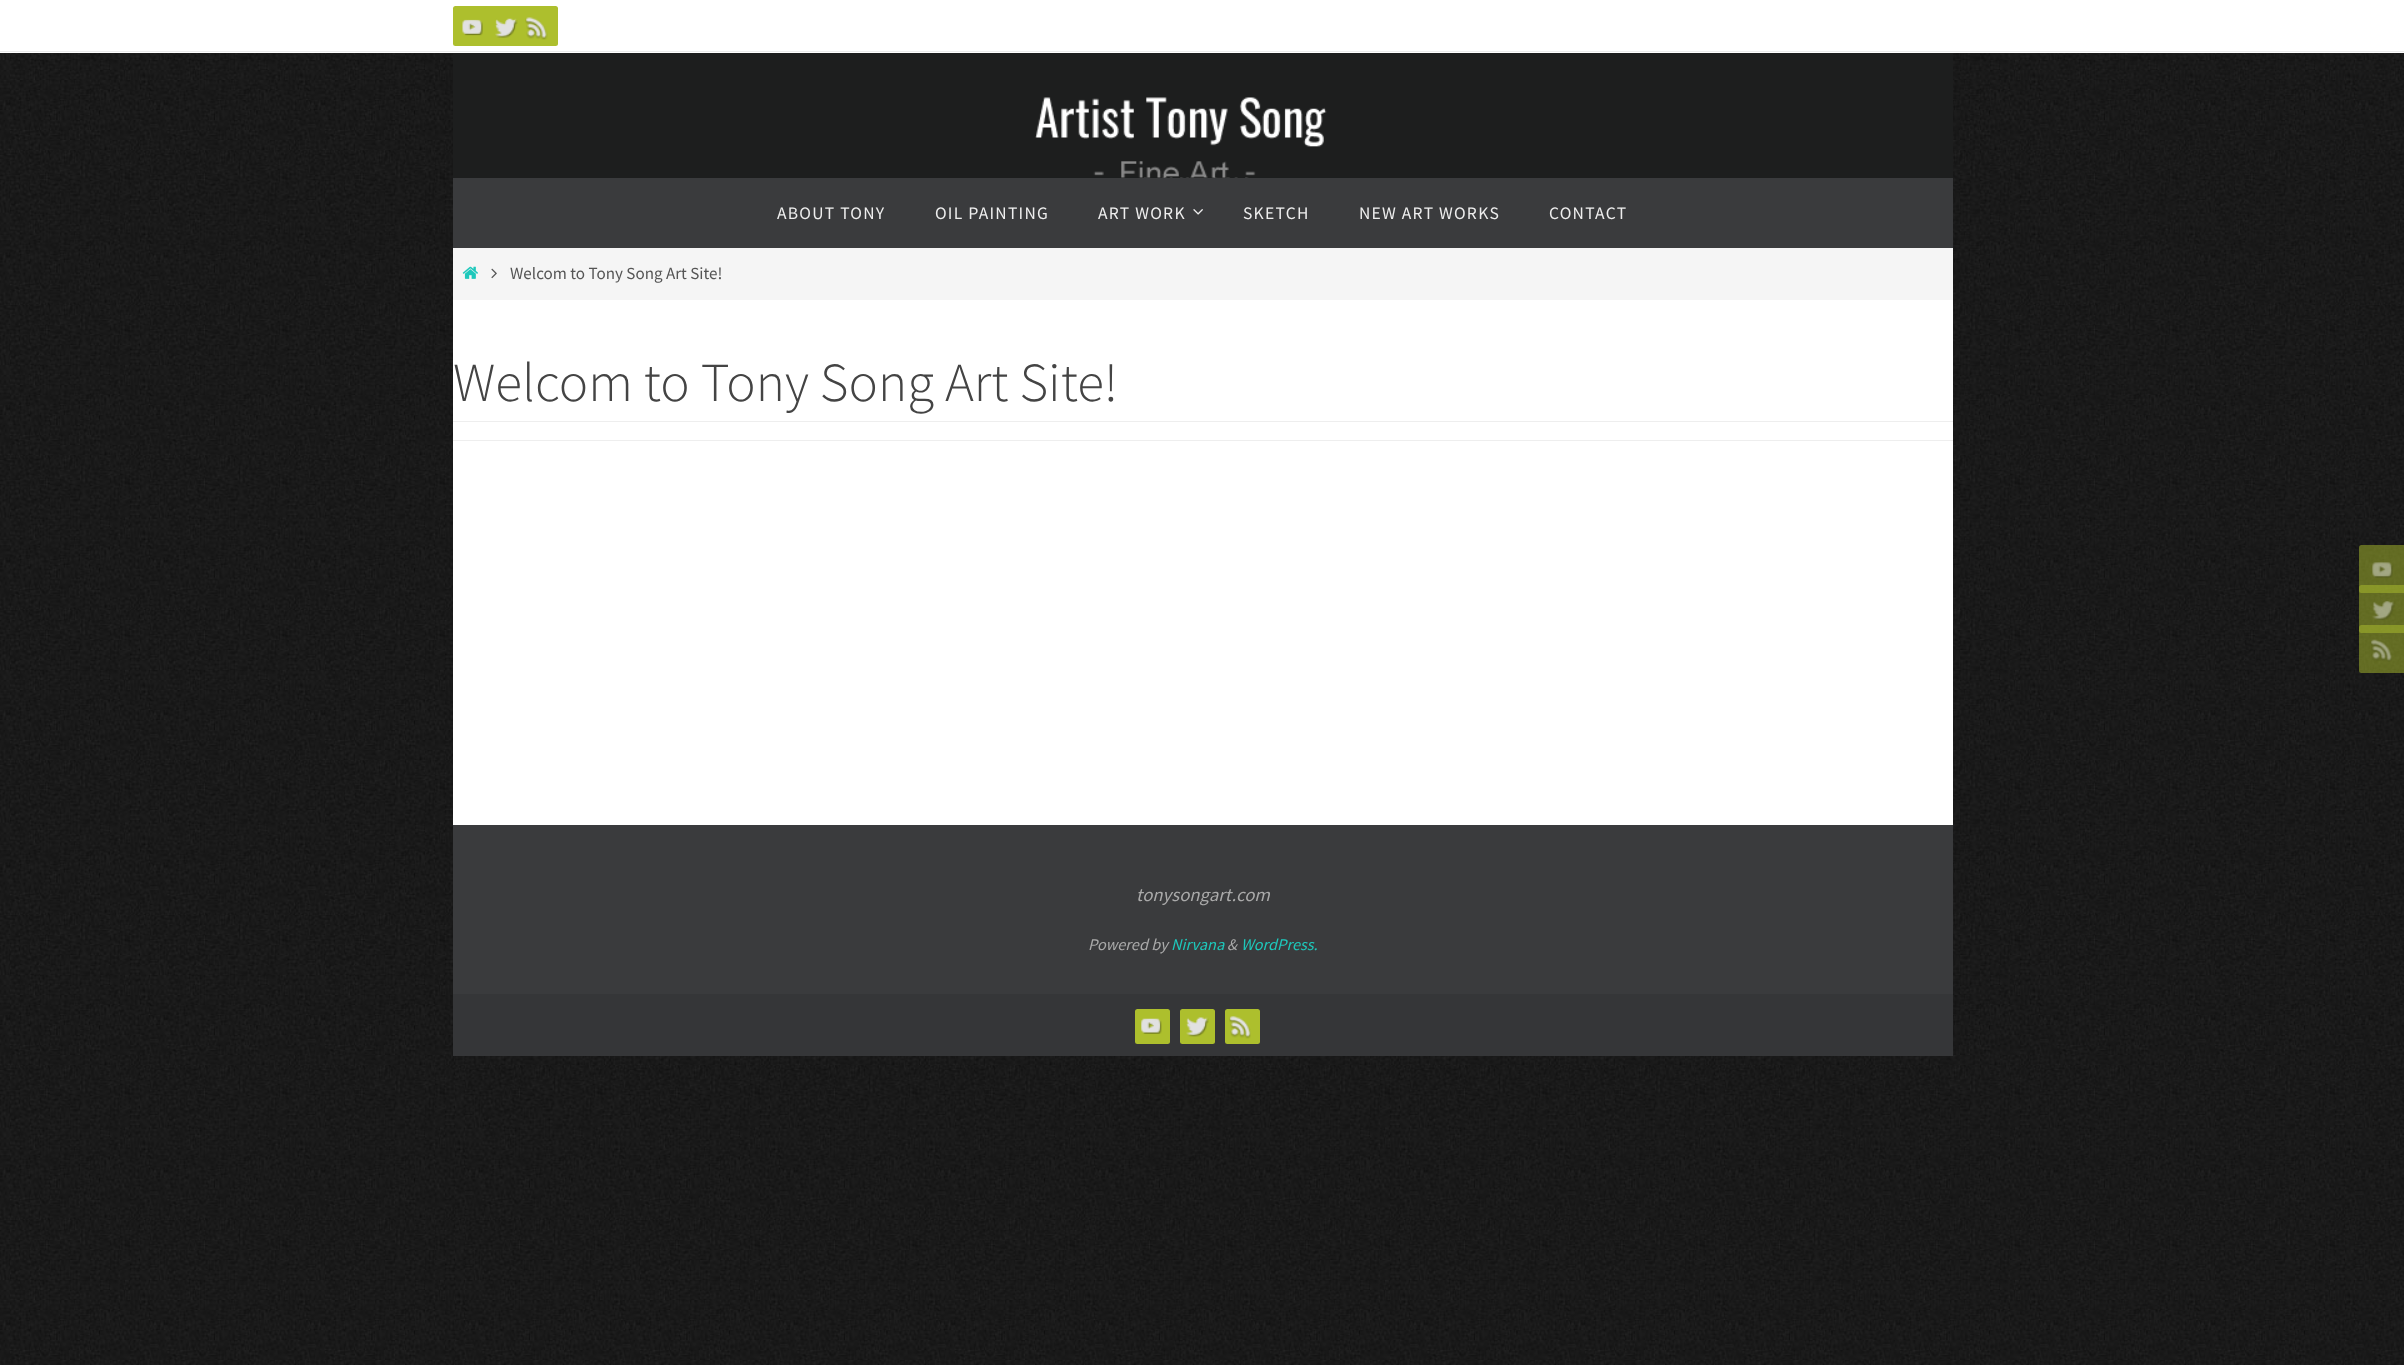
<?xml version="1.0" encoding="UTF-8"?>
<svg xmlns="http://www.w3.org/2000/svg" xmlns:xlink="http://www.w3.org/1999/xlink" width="2404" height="1365">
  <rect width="100%" height="100%" fill="#ffffff" />
  <image x="0" y="53" width="2404" height="1312" xlink:href="image1.png" />
  <rect y="51" width="2404" height="1" fill="#ebebeb" />
  <rect x="453" y="6" width="40" height="40" rx="2.5" fill="#adbf2d" />
  <image x="462" y="19" width="21" height="17" xlink:href="image2.png" />
  <rect x="485" y="6" width="40" height="40" rx="2.5" fill="#adbf2d" />
  <image x="495" y="18" width="23" height="20" xlink:href="image3.png" />
  <rect x="518" y="6" width="40" height="40" rx="2.5" fill="#adbf2d" />
  <image x="525" y="17" width="23" height="23" xlink:href="image4.png" />
  <rect x="453" y="53" width="1500" height="125" fill="#1d1e1e" />
  <image x="1057" y="177" width="292" height="1" xlink:href="image6.png" />
  <image x="1035" y="97" width="314" height="81" xlink:href="image5.png" />
  <rect x="453" y="178" width="1500" height="70" fill="#3a3b3d" />
  <image x="1193" y="209" width="10" height="6" xlink:href="image7.png" />
  <rect x="453" y="248" width="1500" height="52" fill="#f5f5f5" />
  <image x="462" y="266" width="16" height="13" xlink:href="image8.png" />
  <image x="491" y="268" width="6" height="11" xlink:href="image9.png" />
  <rect x="453" y="300" width="1500" height="525" fill="#ffffff" />
  <rect x="453" y="421" width="1500" height="1" fill="#eeeeee" />
  <rect x="453" y="440" width="1500" height="1" fill="#eeeeee" />
  <rect x="453" y="825" width="1500" height="169" fill="#3a3b3d" />
  <rect x="453" y="994" width="1500" height="62" fill="#353638" />
  <rect x="1135" y="1009" width="35" height="35" rx="2.5" fill="#adbf2d" />
  <image x="1141" y="1018" width="21" height="16" xlink:href="image10.png" />
  <rect x="1180" y="1009" width="35" height="35" rx="2.5" fill="#adbf2d" />
  <image x="1186" y="1017" width="23" height="20" xlink:href="image11.png" />
  <rect x="1225" y="1009" width="35" height="35" rx="2.5" fill="#adbf2d" />
  <image x="1229" y="1016" width="22" height="23" xlink:href="image12.png" />
  <rect x="2359" y="545" width="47" height="48" rx="2.5" fill="#adbf2d" fill-opacity="0.5" />
  <image x="2372" y="562" width="21" height="16" xlink:href="image13.png" />
  <rect x="2359" y="585" width="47" height="48" rx="2.5" fill="#adbf2d" fill-opacity="0.5" />
  <image x="2372" y="601" width="23" height="19" xlink:href="image14.png" />
  <rect x="2359" y="625" width="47" height="48" rx="2.5" fill="#adbf2d" fill-opacity="0.5" />
  <image x="2371" y="639" width="21" height="23" xlink:href="image15.png" />
  <text x="777" y="219" style="font-family: Source Sans Pro; font-size: 17.5px; letter-spacing: 1.25px; fill: #eeeeee">ABOUT TONY</text>
  <text x="935" y="219" style="font-family: Source Sans Pro; font-size: 17.5px; letter-spacing: 1.25px; fill: #eeeeee">OIL PAINTING</text>
  <text x="1098" y="219" style="font-family: Source Sans Pro; font-size: 17.5px; letter-spacing: 1.25px; fill: #eeeeee">ART WORK</text>
  <text x="1243" y="219" style="font-family: Source Sans Pro; font-size: 17.5px; letter-spacing: 1.25px; fill: #eeeeee">SKETCH</text>
  <text x="1359" y="219" style="font-family: Source Sans Pro; font-size: 17.5px; letter-spacing: 1.25px; fill: #eeeeee">NEW ART WORKS</text>
  <text x="1549" y="219" style="font-family: Source Sans Pro; font-size: 17.5px; letter-spacing: 1.25px; fill: #eeeeee">CONTACT</text>
  <text x="510" y="279" style="font-family: Source Sans Pro; font-size: 17px; fill: #555555">Welcom to Tony Song Art Site!</text>
  <text x="453" y="401" style="font-family: Source Sans Pro; font-size: 55px; font-weight: 300; fill: #444444">Welcom to Tony Song Art Site!</text>
  <text x="1136" y="901" style="font-family: Source Sans Pro; font-size: 18.75px; font-style: italic; fill: #aaaaaa">tonysongart.com</text>
  <text x="1088" y="950" style="font-family: Source Sans Pro; font-size: 16.25px; font-style: italic; fill: #aaaaaa">Powered by</text>
  <text x="1171" y="950" style="font-family: Source Sans Pro; font-size: 16.25px; font-style: italic; fill: #1ec8bb">Nirvana</text>
  <text x="1227" y="950" style="font-family: Source Sans Pro; font-size: 16.25px; font-style: italic; fill: #aaaaaa">&amp;</text>
  <text x="1241" y="950" style="font-family: Source Sans Pro; font-size: 16.25px; font-style: italic; fill: #1ec8bb">WordPress.</text>
</svg>
